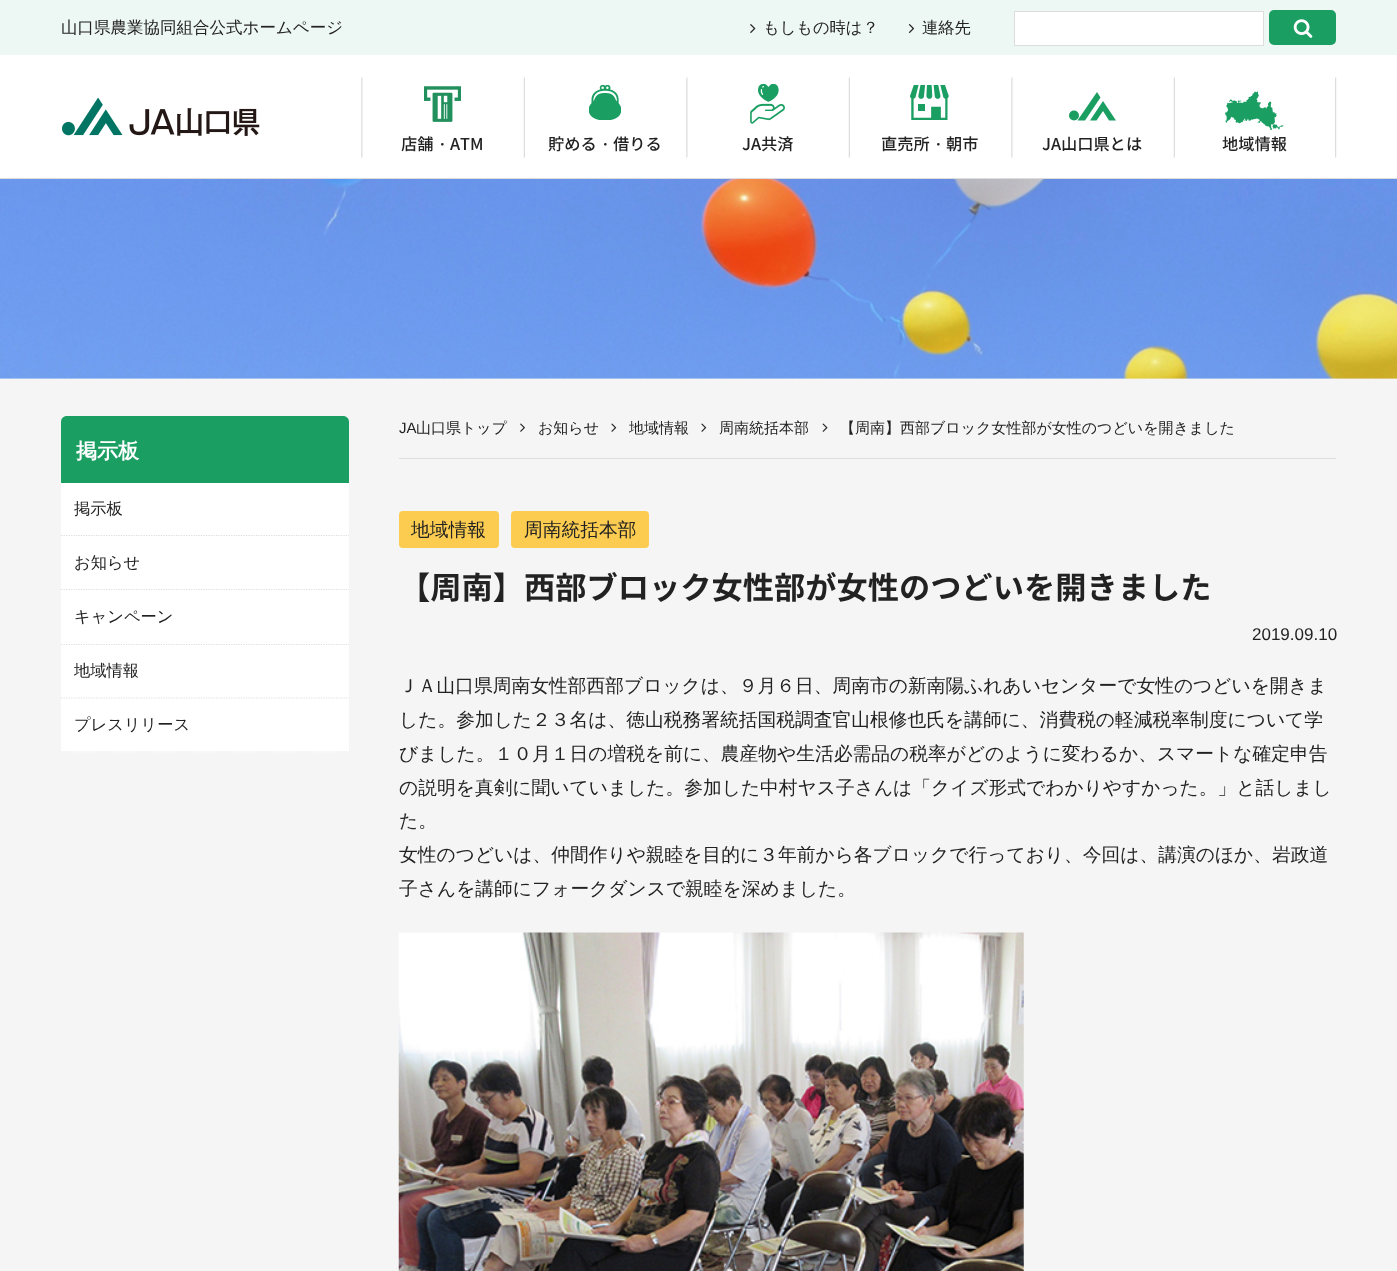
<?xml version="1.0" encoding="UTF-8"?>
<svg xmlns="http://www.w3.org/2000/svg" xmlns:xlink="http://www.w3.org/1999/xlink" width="1397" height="1271">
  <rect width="100%" height="100%" fill="#ffffff" />
  <rect y="178" width="1397" height="1" fill="#dddddd" />
  <rect width="1397" height="55" fill="#edf7f4" />
  <image x="750" y="24" width="6" height="9" xlink:href="image1.png" />
  <image x="908" y="24" width="7" height="9" xlink:href="image2.png" />
  <rect x="1014.5" y="11.5" width="249" height="34" fill="#ffffff" stroke="#dddddd" />
  <rect x="1269" y="10" width="67" height="35" rx="5" fill="#1a9e62" />
  <image x="1293" y="19" width="20" height="19" xlink:href="image3.png" />
  <image x="62" y="98" width="198" height="38" xlink:href="image4.png" />
  <image x="1335" y="77" width="2" height="81" xlink:href="image5.png" />
  <image x="424" y="86" width="37" height="36" xlink:href="image6.png" />
  <image x="361" y="77" width="2" height="81" xlink:href="image7.png" />
  <image x="589" y="85" width="32" height="35" xlink:href="image8.png" />
  <image x="523" y="77" width="2" height="81" xlink:href="image9.png" />
  <image x="750" y="84" width="35" height="40" xlink:href="image10.png" />
  <image x="686" y="77" width="2" height="81" xlink:href="image7.png" />
  <image x="910" y="85" width="39" height="35" xlink:href="image11.png" />
  <image x="848" y="77" width="2" height="81" xlink:href="image9.png" />
  <circle cx="1074" cy="115.5" r="5" fill="#1a9e62" />
  <path d="M 1103 101 l -13 19.5 h 6.5 l 6.5 -9.5 l 6 9.5 h 7 z" fill="#1a9e62" />
  <path d="M 1100.5 97.5 l -3.5 -5.5 l -19.5 28.5 h 7.5 z" fill="#1a9e62" />
  <image x="1011" y="77" width="2" height="81" xlink:href="image7.png" />
  <image x="1225" y="91" width="59" height="39" xlink:href="image12.png" />
  <image x="1173" y="77" width="2" height="81" xlink:href="image9.png" />
  <rect y="378" width="1397" height="1" fill="#eeeeee" />
  <image x="0" y="179" width="1397" height="200" xlink:href="image13.png" />
  <rect y="379" width="1397" height="892" fill="#f5f5f5" />
  <path d="M 67 416 h 276 c 3.5 0 6 2.5 6 6 v 61 h -288 v -61 c 0 -3.5 2.5 -6 6 -6 z" fill="#1a9e62" />
  <rect x="61" y="483" width="288" height="270" fill="#ffffff" />
  <path d="M 61 535.5 h 288" fill="none" stroke="#dddddd" stroke-width="1.2" stroke-dasharray="1.25 1.25" />
  <path d="M 61 589.5 h 288" fill="none" stroke="#dddddd" stroke-width="1.2" stroke-dasharray="1.25 1.25" />
  <path d="M 61 644.5 h 288" fill="none" stroke="#dddddd" stroke-width="1.2" stroke-dasharray="1.25 1.25" />
  <path d="M 61 698 h 288" fill="none" stroke="#dddddd" stroke-width="1.2" stroke-dasharray="1.25 1.25" />
  <path d="M 61 752 h 288" fill="none" stroke="#dddddd" stroke-width="1.2" stroke-dasharray="1.25 1.25" />
  <rect x="399" y="458" width="937" height="1" fill="#dddddd" />
  <image x="520" y="423" width="5" height="9" xlink:href="image14.png" />
  <image x="611" y="423" width="6" height="9" xlink:href="image15.png" />
  <image x="701" y="423" width="6" height="9" xlink:href="image15.png" />
  <image x="822" y="423" width="6" height="9" xlink:href="image16.png" />
  <rect x="399" y="511" width="100" height="37" rx="4" fill="#fbcc4f" />
  <rect x="511" y="511" width="138" height="37" rx="4" fill="#fbcc4f" />
  <image x="398" y="932" width="626" height="339" xlink:href="image17.png" />
  <text x="61" y="33" style="font-family: WenQuanYi Zen Hei; font-size: 16.5px; font-weight: 500; fill: #222222">山口県農業協同組合公式ホームページ</text>
  <text x="763" y="33" style="font-family: WenQuanYi Zen Hei; font-size: 16.25px; font-weight: 500; fill: #222222">もしもの時は？</text>
  <text x="922" y="33" style="font-family: WenQuanYi Zen Hei; font-size: 16.25px; font-weight: 500; fill: #222222">連絡先</text>
  <text x="401" y="150" style="font-family: Noto Sans CJK JP; font-size: 16.25px; font-weight: 500; fill: #222222">店舗</text>
  <text x="434" y="150" style="font-family: WenQuanYi Zen Hei; font-size: 16.25px; font-weight: 500; fill: #222222">・</text>
  <text x="450" y="150" style="font-family: Noto Sans CJK JP; font-size: 16.25px; font-weight: 500; fill: #222222">ATM</text>
  <text x="548" y="150" style="font-family: Noto Sans CJK JP; font-size: 16.25px; font-weight: 500; fill: #222222">貯める</text>
  <text x="597" y="150" style="font-family: WenQuanYi Zen Hei; font-size: 16.25px; font-weight: 500; fill: #222222">・</text>
  <text x="613" y="150" style="font-family: Noto Sans CJK JP; font-size: 16.25px; font-weight: 500; fill: #222222">借りる</text>
  <text x="742" y="150" style="font-family: Noto Sans CJK JP; font-size: 16.25px; font-weight: 500; fill: #222222">JA共済</text>
  <text x="881" y="150" style="font-family: Noto Sans CJK JP; font-size: 16.25px; font-weight: 500; fill: #222222">直売所</text>
  <text x="930" y="150" style="font-family: WenQuanYi Zen Hei; font-size: 16.25px; font-weight: 500; fill: #222222">・</text>
  <text x="946" y="150" style="font-family: Noto Sans CJK JP; font-size: 16.25px; font-weight: 500; fill: #222222">朝市</text>
  <text x="1042" y="150" style="font-family: Noto Sans CJK JP; font-size: 16.25px; font-weight: 500; fill: #222222">JA山口県とは</text>
  <text x="1222" y="150" style="font-family: Noto Sans CJK JP; font-size: 16.25px; font-weight: 500; fill: #222222">地域情報</text>
  <text x="76" y="458" style="font-family: WenQuanYi Zen Hei; font-size: 21px; font-weight: bold; fill: #ffffff">掲示板</text>
  <text x="74" y="514" style="font-family: WenQuanYi Zen Hei; font-size: 16.25px; font-weight: 500; fill: #222222">掲示板</text>
  <text x="74" y="568" style="font-family: WenQuanYi Zen Hei; font-size: 16.25px; font-weight: 500; fill: #222222">お知らせ</text>
  <text x="74" y="622" style="font-family: WenQuanYi Zen Hei; font-size: 16.25px; font-weight: 500; fill: #222222">キャンペーン</text>
  <text x="74" y="676" style="font-family: WenQuanYi Zen Hei; font-size: 16.25px; font-weight: 500; fill: #222222">地域情報</text>
  <text x="74" y="730" style="font-family: WenQuanYi Zen Hei; font-size: 16.25px; font-weight: 500; fill: #222222">プレスリリース</text>
  <text x="399" y="433" style="font-family: Liberation Sans; font-size: 15px; fill: #222222">JA</text>
  <text x="416" y="433" style="font-family: WenQuanYi Zen Hei; font-size: 15px; font-weight: 500; fill: #222222">山口県トップ</text>
  <text x="538" y="433" style="font-family: WenQuanYi Zen Hei; font-size: 15px; font-weight: 500; fill: #222222">お知らせ</text>
  <text x="629" y="433" style="font-family: WenQuanYi Zen Hei; font-size: 15px; font-weight: 500; fill: #222222">地域情報</text>
  <text x="719" y="433" style="font-family: WenQuanYi Zen Hei; font-size: 15px; font-weight: 500; fill: #222222">周南統括本部</text>
  <text x="840" y="433" style="font-family: WenQuanYi Zen Hei; font-size: 15px; font-weight: 500; fill: #222222">【周南】西部ブロック女性部が女性のつどいを開きました</text>
  <text x="411" y="536" style="font-family: WenQuanYi Zen Hei; font-size: 18.75px; font-weight: 500; fill: #222222">地域情報</text>
  <text x="524" y="536" style="font-family: WenQuanYi Zen Hei; font-size: 18.75px; font-weight: 500; fill: #222222">周南統括本部</text>
  <text x="399" y="599" style="font-family: Noto Sans CJK JP; font-size: 31.25px; font-weight: bold; fill: #222222">【周南】西部ブロック女性部が女性のつどいを開きました</text>
  <text x="1252" y="640" style="font-family: Liberation Sans; font-size: 17px; fill: #222222">2019.09.10</text>
  <text x="399" y="692" style="font-family: WenQuanYi Zen Hei; font-size: 18.75px; font-weight: 500; fill: #222222">ＪＡ山口県周南女性部西部ブロックは、９月６日、周南市の新南陽ふれあいセンターで女性のつどいを開きま</text>
  <text x="399" y="726" style="font-family: WenQuanYi Zen Hei; font-size: 18.75px; font-weight: 500; fill: #222222">した。参加した２３名は、徳山税務署統括国税調査官山根修也氏を講師に、消費税の軽減税率制度について学</text>
  <text x="399" y="760" style="font-family: WenQuanYi Zen Hei; font-size: 18.75px; font-weight: 500; fill: #222222">びました。１０月１日の増税を前に、農産物や生活必需品の税率がどのように変わるか、スマートな確定申告</text>
  <text x="399" y="794" style="font-family: WenQuanYi Zen Hei; font-size: 18.75px; font-weight: 500; fill: #222222">の説明を真剣に聞いていました。参加した中村ヤス子さんは「クイズ形式でわかりやすかった。」と話しまし</text>
  <text x="399" y="827" style="font-family: WenQuanYi Zen Hei; font-size: 18.75px; font-weight: 500; fill: #222222">た。</text>
  <text x="399" y="861" style="font-family: WenQuanYi Zen Hei; font-size: 18.75px; font-weight: 500; fill: #222222">女性のつどいは、仲間作りや親睦を目的に３年前から各ブロックで行っており、今回は、講演のほか、岩政道</text>
  <text x="399" y="895" style="font-family: WenQuanYi Zen Hei; font-size: 18.75px; font-weight: 500; fill: #222222">子さんを講師にフォークダンスで親睦を深めました。</text>
</svg>
